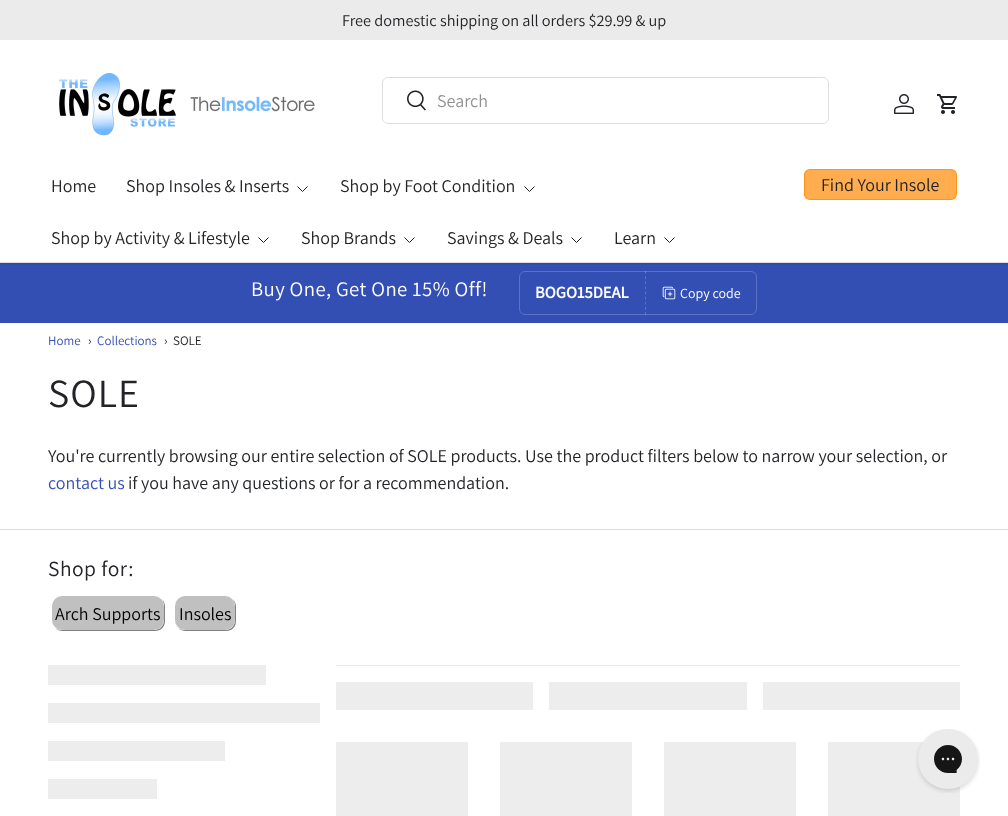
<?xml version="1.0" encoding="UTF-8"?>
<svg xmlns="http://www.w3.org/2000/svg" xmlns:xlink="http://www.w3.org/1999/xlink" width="1008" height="816">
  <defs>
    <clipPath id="clip1"><rect x="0" y="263" width="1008" height="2" /></clipPath>
    <clipPath id="clip2"><rect x="804" y="169" width="153" height="31" rx="6" /></clipPath>
    <linearGradient id="g1" gradientUnits="userSpaceOnUse" x1="513" y1="130" x2="946" y2="239"><stop offset="0.6" stop-color="#e09f55" /><stop offset="0.6" stop-color="#ffad4e" /><stop offset="1" stop-color="#ffad4e" /></linearGradient>
  </defs>
  <rect width="100%" height="100%" fill="#ffffff" />
  <rect y="263" width="1008" height="60" fill="#334fb4" />
  <g clip-path="url(#clip1)">
    <rect x="-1" y="39" width="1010" height="225" fill="#000000" fill-opacity="0.08" filter="blur(1.5px)" />
  </g>
  <rect width="1008" height="40" fill="#ebebeb" />
  <image x="59" y="72" width="256" height="64" xlink:href="image1.png" />
  <rect x="382.5" y="77.5" width="446" height="46" rx="5.5" fill="none" stroke="#dedede" />
  <rect x="383" y="78" width="445" height="45" rx="6" fill="#ffffff" />
  <image x="407" y="90" width="19" height="21" xlink:href="image2.png" />
  <image x="894" y="94" width="20" height="20" xlink:href="image3.png" />
  <image x="937" y="94" width="20" height="20" xlink:href="image4.png" />
  <path d="M 307.5 186.5 l -5 5 l -5 -5" fill="none" stroke="#222222" />
  <path d="M 534.5 186.5 l -5 5 l -5 -5" fill="none" stroke="#222222" />
  <path d="M 268.5 237.5 l -5 5 l -5 -5" fill="none" stroke="#222222" />
  <path d="M 414.5 237.5 l -5 5 l -5 -5" fill="none" stroke="#222222" />
  <path d="M 581.5 237.5 l -5 5 l -5 -5" fill="none" stroke="#222222" />
  <path d="M 674.5 237.5 l -5 5 l -5 -5" fill="none" stroke="#222222" />
  <g clip-path="url(#clip2)">
    <rect x="804" y="170" width="152" height="29" fill="url(#g1)" />
  </g>
  <rect x="804.5" y="169.5" width="152" height="30" rx="5.5" fill="none" stroke="#ff9417" />
  <rect y="262" width="1008" height="1" fill="#dedede" />
  <rect x="519.5" y="271.5" width="237" height="43" rx="5.5" fill="none" stroke="#5c72c3" />
  <path d="M 645.5 271 v 44" fill="none" stroke="#ffffff" stroke-opacity="0.2" stroke-dasharray="3 2.12" />
  <image x="662" y="286" width="14" height="14" xlink:href="image5.png" />
  <rect y="529" width="1008" height="1" fill="#dedede" />
  <path d="M 55 628 c 2 2 5 3 8 3 h 92 c 6 0 10 -4 10 -10 v -14 c 0 -3 -1 -6 -3 -8 c 1 2 2 4 2 7 v 14 c 0 6 -4 10 -10 10 h -92 c -3 0 -5 -1 -7 -2 z" fill="#808080" />
  <rect x="52" y="596" width="112" height="34" rx="10" fill="#c0c0c0" />
  <path d="M 178 628 c 2 2 5 3 8 3 h 40 c 6 0 10 -4 10 -10 v -14 c 0 -3 -1 -6 -3 -8 c 1 2 2 4 2 7 v 14 c 0 6 -4 10 -10 10 h -40 c -3 0 -5 -1 -7 -2 z" fill="#808080" />
  <rect x="175" y="596" width="60" height="34" rx="10" fill="#c0c0c0" />
  <rect x="48" y="665" width="218" height="20" fill="#ededed" />
  <rect x="48" y="703" width="272" height="20" fill="#ededed" />
  <rect x="48" y="741" width="177" height="20" fill="#ededed" />
  <rect x="48" y="779" width="109" height="20" fill="#ededed" />
  <rect x="336" y="665" width="624" height="1" fill="#ebebeb" />
  <rect x="336" y="682" width="197" height="28" fill="#ededed" />
  <rect x="549" y="682" width="198" height="28" fill="#ededed" />
  <rect x="763" y="682" width="197" height="28" fill="#ededed" />
  <rect x="336" y="742" width="132" height="74" fill="#ededed" />
  <rect x="500" y="742" width="132" height="74" fill="#ededed" />
  <rect x="664" y="742" width="132" height="74" fill="#ededed" />
  <rect x="828" y="742" width="132" height="74" fill="#ededed" />
  <image x="916" y="729" width="64" height="64" xlink:href="image6.png" />
  <text x="342" y="26" style="font-family: Assistant; font-size: 16.25px; fill: #212326">Free domestic shipping on all orders $29.99 &amp; up</text>
  <text x="437" y="107" style="font-family: Assistant; font-size: 18px; fill: #909193">Search</text>
  <text x="51" y="192" style="font-family: Assistant; font-size: 18px; fill: #212326">Home</text>
  <text x="126" y="192" style="font-family: Assistant; font-size: 18px; fill: #212326">Shop Insoles &amp; Inserts</text>
  <text x="340" y="192" style="font-family: Assistant; font-size: 18px; fill: #212326">Shop by Foot Condition</text>
  <text x="51" y="244" style="font-family: Assistant; font-size: 18px; fill: #212326">Shop by Activity &amp; Lifestyle</text>
  <text x="301" y="244" style="font-family: Assistant; font-size: 18px; fill: #212326">Shop Brands</text>
  <text x="447" y="244" style="font-family: Assistant; font-size: 18px; fill: #212326">Savings &amp; Deals</text>
  <text x="614" y="244" style="font-family: Assistant; font-size: 18px; fill: #212326">Learn</text>
  <text x="821" y="191" style="font-family: Assistant; font-size: 18px; fill: #212326">Find Your Insole</text>
  <text x="251" y="296" style="font-family: Assistant; font-size: 20.75px; letter-spacing: 0.4px; fill: #ffffff">Buy One, Get One 15% Off!</text>
  <text x="535" y="298" style="font-family: Assistant; font-size: 16.5px; font-weight: bold; fill: #ffffff">BOGO15DEAL</text>
  <text x="680" y="298" style="font-family: Assistant; font-size: 14px; fill: #ffffff">Copy code</text>
  <text x="48" y="345" style="font-family: Assistant; font-size: 13px; fill: #334fb4">Home</text>
  <text x="88" y="345" style="font-family: Assistant; font-size: 13px; fill: #212326">›</text>
  <text x="97" y="345" style="font-family: Assistant; font-size: 13px; fill: #334fb4">Collections</text>
  <text x="164" y="345" style="font-family: Assistant; font-size: 13px; fill: #212326">›</text>
  <text x="173" y="345" style="font-family: Assistant; font-size: 13px; fill: #212326">SOLE</text>
  <text x="48" y="407" style="font-family: Assistant; font-size: 40px; letter-spacing: 1px; fill: #212326">SOLE</text>
  <text x="48" y="462" style="font-family: Assistant; font-size: 18px; fill: #212326">You're currently browsing our entire selection of SOLE products. Use the product filters below to narrow your selection, or</text>
  <text x="48" y="489" style="font-family: Assistant; font-size: 18px; fill: #334fb4">contact us</text>
  <text x="128" y="489" style="font-family: Assistant; font-size: 18px; fill: #212326">if you have any questions or for a recommendation.</text>
  <text x="48" y="576" style="font-family: Assistant; font-size: 21.5px; letter-spacing: 0.5px; fill: #212326">Shop for:</text>
  <text x="55" y="620" style="font-family: Assistant; font-size: 18px; fill: #000000">Arch Supports</text>
  <text x="179" y="620" style="font-family: Assistant; font-size: 18px; fill: #000000">Insoles</text>
</svg>
